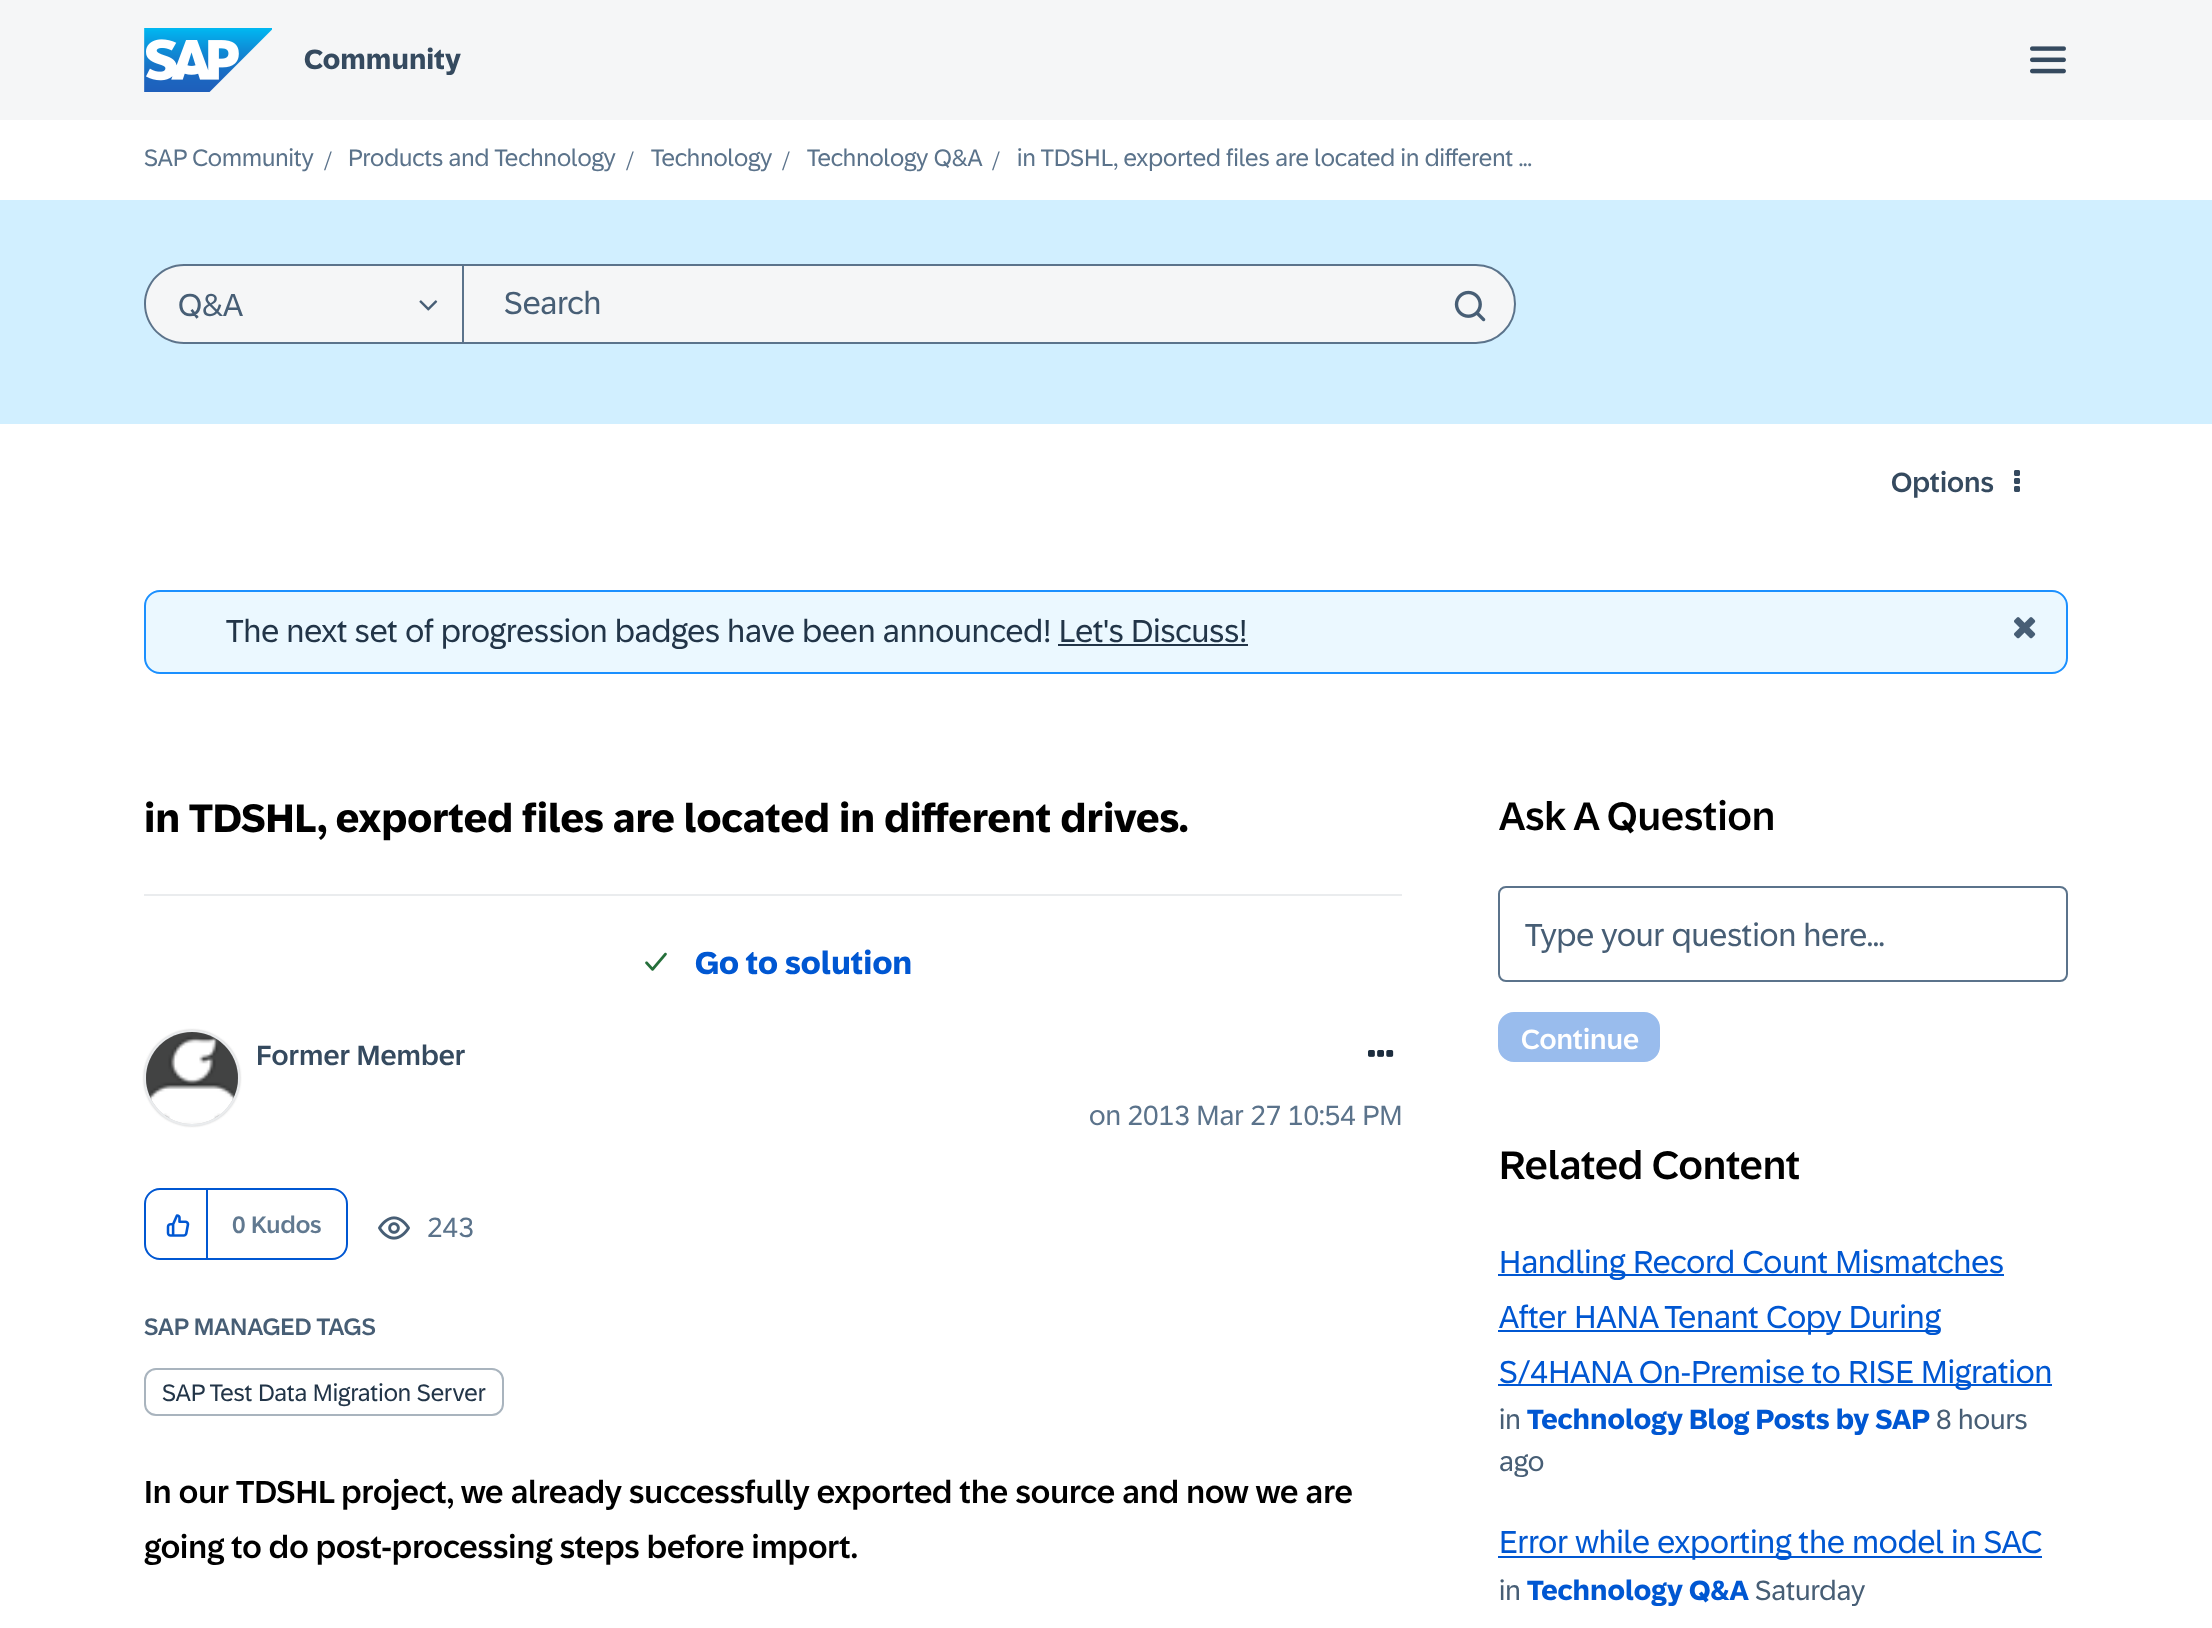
<?xml version="1.0" encoding="UTF-8"?>
<svg xmlns="http://www.w3.org/2000/svg" xmlns:xlink="http://www.w3.org/1999/xlink" width="2212" height="1628">
  <rect width="100%" height="100%" fill="#ffffff" />
  <rect width="2212" height="120" fill="#f5f6f7" />
  <image x="144" y="28" width="128" height="64" xlink:href="image1.png" />
  <image x="2030" y="46" width="36" height="28" xlink:href="image2.png" />
  <rect y="200" width="2212" height="224" fill="#d1efff" />
  <path d="M 184 264 h 278 v 80 h -278 c -22 0 -40 -18 -40 -40 c 0 -22 18 -40 40 -40 z" fill="#f5f6f7" />
  <path d="M 184 264 h 278 v 80 h -278 c -22 0 -40 -18 -40 -40 c 0 -22 18 -40 40 -40 z m 0 2 h 278 v 76 h -278 c -21 0 -38 -17 -38 -38 c 0 -21 17 -38 38 -38 z" fill="#5b738b" fill-rule="evenodd" />
  <image x="419" y="300" width="19" height="11" xlink:href="image3.png" />
  <path d="M 463 265 h 1013 c 21.5 0 39 17.5 39 39 c 0 21.5 -17.5 39 -39 39 h -1013 z" fill="#f5f6f7" stroke="#5b738b" stroke-width="2" />
  <image x="1454" y="290" width="32" height="32" xlink:href="image4.png" />
  <image x="2014" y="470" width="6" height="22" xlink:href="image5.png" />
  <rect x="145" y="591" width="1922" height="82" rx="15" fill="#ebf8ff" stroke="#1b90ff" stroke-width="2" />
  <rect x="1058" y="644" width="190" height="2" fill="#223548" />
  <image x="2014" y="617" width="22" height="22" xlink:href="image6.png" />
  <rect x="144" y="894" width="1258" height="2" fill="#eaecee" />
  <image x="645" y="952" width="22" height="19" xlink:href="image7.png" />
  <rect x="144" y="1030" width="96" height="96" rx="48" fill="#c4c4c4" filter="blur(1px)" />
  <circle cx="192" cy="1078" r="47" fill="none" stroke="#eaecee" stroke-width="2" />
  <image x="146" y="1032" width="92" height="92" xlink:href="image8.png" />
  <image x="1368" y="1050" width="26" height="7" xlink:href="image9.png" />
  <rect x="145" y="1189" width="202" height="70" rx="15" fill="none" stroke="#0057d2" stroke-width="2" />
  <rect x="206" y="1190" width="2" height="70" fill="#0057d2" />
  <image x="166" y="1214" width="24" height="23" xlink:href="image10.png" />
  <image x="378" y="1216" width="32" height="24" xlink:href="image11.png" />
  <rect x="145" y="1369" width="358" height="46" rx="11" fill="none" stroke="#a9b4be" stroke-width="2" />
  <rect x="1499" y="887" width="568" height="94" rx="7" fill="none" stroke="#5b738b" stroke-width="2" />
  <rect x="1499" y="1013" width="160" height="48" rx="15" fill="#99bced" stroke="#99bced" stroke-width="2" />
  <rect x="1498" y="1274" width="506" height="2" fill="#0057d2" />
  <rect x="1498" y="1330" width="442" height="2" fill="#0057d2" />
  <rect x="1498" y="1384" width="554" height="2" fill="#0057d2" />
  <rect x="1498" y="1556" width="544" height="2" fill="#0057d2" />
  <text x="304" y="69" style="font-family: '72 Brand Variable'; font-size: 28px; font-weight: bold; fill: #354a5f">Community</text>
  <text x="144" y="166" style="font-family: '72 Brand Variable'; font-size: 24px; fill: #5b738b">SAP Community</text>
  <text x="324" y="170" style="font-family: Liberation Serif; font-size: 28px; fill: #5b738b">/</text>
  <text x="348" y="166" style="font-family: '72 Brand Variable'; font-size: 24px; fill: #5b738b">Products and Technology</text>
  <text x="626" y="170" style="font-family: Liberation Serif; font-size: 28px; fill: #5b738b">/</text>
  <text x="651" y="166" style="font-family: '72 Brand Variable'; font-size: 24px; fill: #5b738b">Technology</text>
  <text x="782" y="170" style="font-family: Liberation Serif; font-size: 28px; fill: #5b738b">/</text>
  <text x="807" y="166" style="font-family: '72 Brand Variable'; font-size: 24px; fill: #5b738b">Technology Q&amp;A</text>
  <text x="992" y="170" style="font-family: Liberation Serif; font-size: 28px; fill: #5b738b">/</text>
  <text x="1017" y="166" style="font-family: '72 Brand Variable'; font-size: 24px; fill: #5b738b">in TDSHL, exported files are located in different ...</text>
  <text x="178" y="316" style="font-family: '72 Brand Variable'; font-size: 32px; fill: #475e75">Q&amp;A</text>
  <text x="504" y="314" style="font-family: '72 Brand Variable'; font-size: 32px; fill: #475e75">Search</text>
  <text x="1891" y="492" style="font-family: '72 Brand Variable'; font-size: 28px; font-weight: 500; fill: #354a5f">Options</text>
  <text x="226" y="642" style="font-family: '72 Brand Variable'; font-size: 32px; fill: #223548">The next set of progression badges have been announced! Let's Discuss!</text>
  <text x="144" y="832" style="font-family: '72 Brand Variable'; font-size: 40px; font-weight: bold; fill: #000000">in TDSHL, exported files are located in different drives.</text>
  <text x="695" y="974" style="font-family: '72 Brand Variable'; font-size: 32px; font-weight: bold; fill: #0057d2">Go to solution</text>
  <text x="256" y="1065" style="font-family: '72 Brand Variable'; font-size: 28px; font-weight: 500; fill: #354a5f">Former Member</text>
  <text x="1089" y="1125" style="font-family: '72 Brand Variable'; font-size: 28px; fill: #5b738b">on 2013 Mar 27 10:54 PM</text>
  <text x="232" y="1233" style="font-family: '72 Brand Variable'; font-size: 24px; font-weight: 500; fill: #617990">0 Kudos</text>
  <text x="427" y="1237" style="font-family: '72 Brand Variable'; font-size: 28px; fill: #5b738b">243</text>
  <text x="144" y="1335" style="font-family: '72 Brand Variable'; font-size: 24px; font-weight: 500; fill: #475e75">SAP MANAGED TAGS</text>
  <text x="162" y="1401" style="font-family: '72 Brand Variable'; font-size: 24px; fill: #223548">SAP Test Data Migration Server</text>
  <text x="144" y="1503" style="font-family: '72 Brand Variable'; font-size: 32px; font-weight: 500; fill: #000000">In our TDSHL project, we already successfully exported the source and now we are</text>
  <text x="144" y="1558" style="font-family: '72 Brand Variable'; font-size: 32px; font-weight: 500; fill: #000000">going to do post-processing steps before import.</text>
  <text x="1499" y="830" style="font-family: '72 Brand Variable'; font-size: 40px; font-weight: 500; fill: #000000">Ask A Question</text>
  <text x="1525" y="946" style="font-family: '72 Brand Variable'; font-size: 32px; fill: #475e75">Type your question here...</text>
  <text x="1521" y="1049" style="font-family: '72 Brand Variable'; font-size: 28px; font-weight: 500; fill: #ffffff">Continue</text>
  <text x="1499" y="1179" style="font-family: '72 Brand Variable'; font-size: 40px; font-weight: 500; fill: #000000">Related Content</text>
  <text x="1499" y="1273" style="font-family: '72 Brand Variable'; font-size: 32px; fill: #0057d2">Handling Record Count Mismatches</text>
  <text x="1499" y="1328" style="font-family: '72 Brand Variable'; font-size: 32px; fill: #0057d2">After HANA Tenant Copy During</text>
  <text x="1499" y="1383" style="font-family: '72 Brand Variable'; font-size: 32px; fill: #0057d2">S/4HANA On-Premise to RISE Migration</text>
  <text x="1499" y="1429" style="font-family: '72 Brand Variable'; font-size: 28px; fill: #475e75">in</text>
  <text x="1527" y="1429" style="font-family: '72 Brand Variable'; font-size: 28px; font-weight: bold; fill: #0057d2">Technology Blog Posts by SAP</text>
  <text x="1936" y="1429" style="font-family: '72 Brand Variable'; font-size: 28px; fill: #475e75">8 hours</text>
  <text x="1499" y="1471" style="font-family: '72 Brand Variable'; font-size: 28px; fill: #475e75">ago</text>
  <text x="1499" y="1553" style="font-family: '72 Brand Variable'; font-size: 32px; fill: #0057d2">Error while exporting the model in SAC</text>
  <text x="1499" y="1600" style="font-family: '72 Brand Variable'; font-size: 28px; fill: #475e75">in</text>
  <text x="1527" y="1600" style="font-family: '72 Brand Variable'; font-size: 28px; font-weight: bold; fill: #0057d2">Technology Q&amp;A</text>
  <text x="1755" y="1600" style="font-family: '72 Brand Variable'; font-size: 28px; fill: #475e75">Saturday</text>
</svg>
